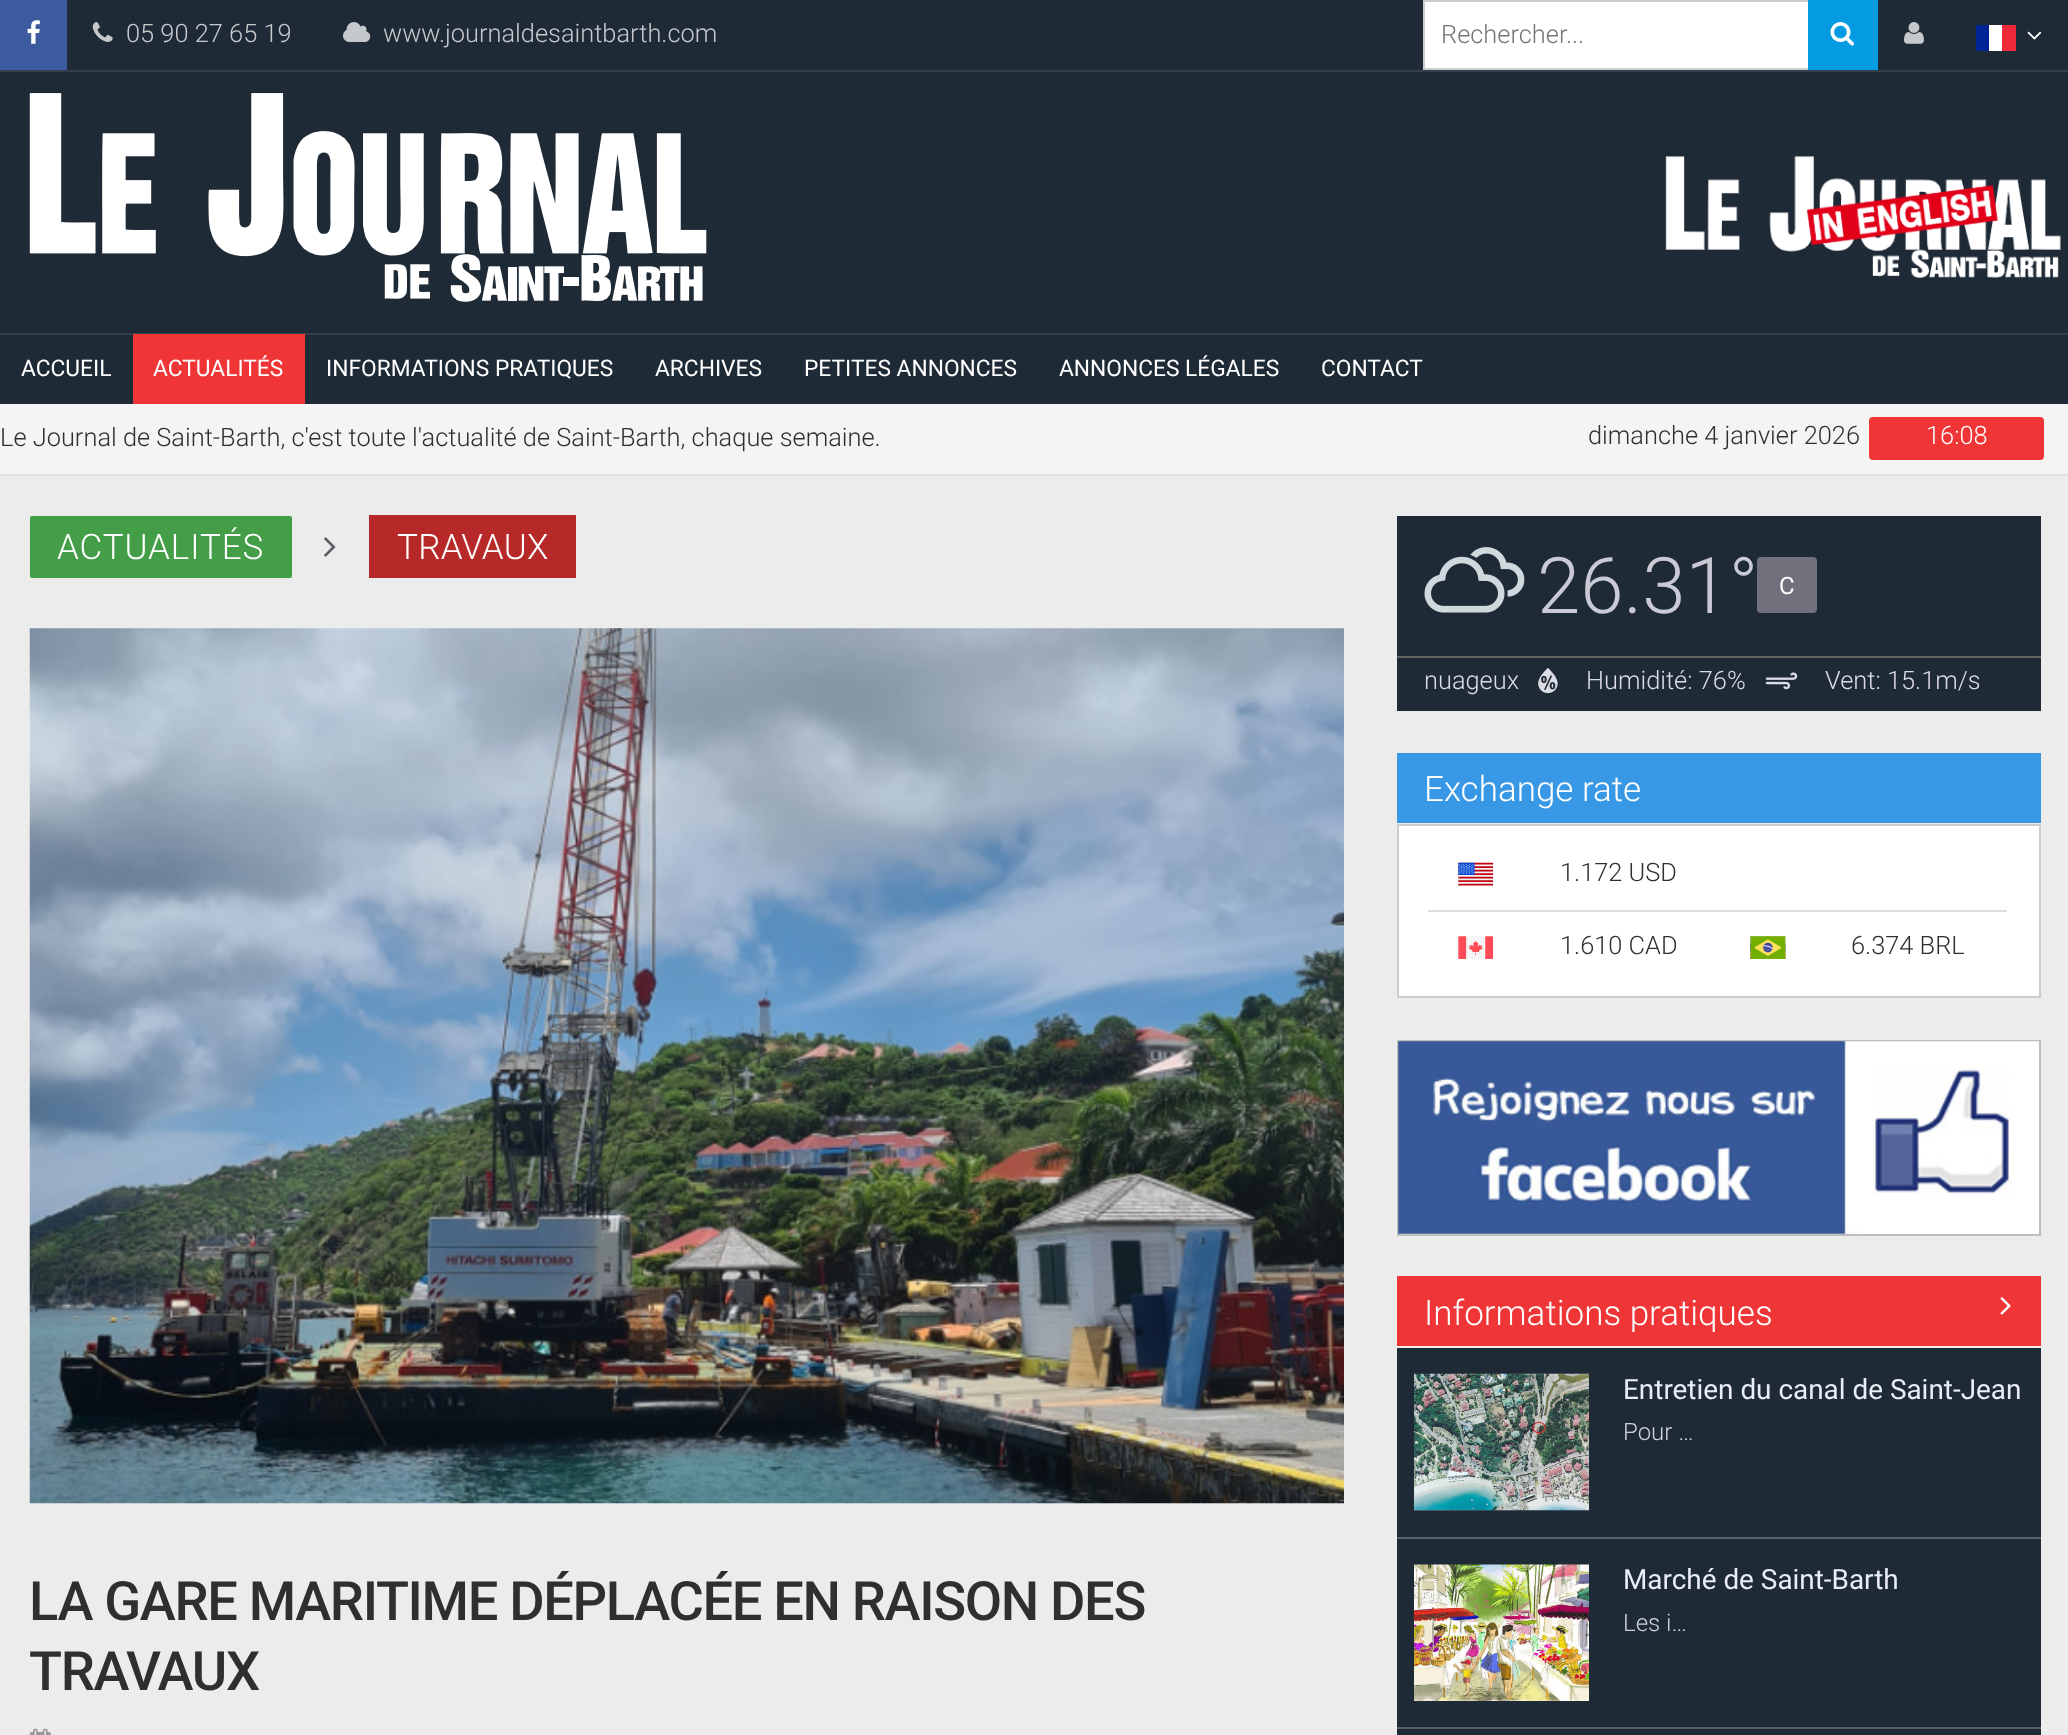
<?xml version="1.0" encoding="UTF-8"?>
<svg xmlns="http://www.w3.org/2000/svg" xmlns:xlink="http://www.w3.org/1999/xlink" width="2068" height="1735">
  <rect width="100%" height="100%" fill="#1f2a37" />
  <rect y="70" width="2068" height="2" fill="#353f4b" />
  <rect width="67" height="70" fill="#3c5b9f" />
  <image x="27" y="20" width="13" height="24" xlink:href="image1.png" />
  <image x="92" y="22" width="21" height="20" xlink:href="image2.png" />
  <image x="343" y="22" width="28" height="20" xlink:href="image3.png" />
  <rect x="1425" y="2" width="383" height="66" fill="#ffffff" />
  <rect x="1424" y="1" width="453" height="68" fill="none" stroke="#cccccc" stroke-width="2" />
  <rect x="1808" width="70" height="70" fill="#039ce2" />
  <image x="1830" y="22" width="24" height="24" xlink:href="image4.png" />
  <image x="1904" y="22" width="20" height="22" xlink:href="image5.png" />
  <rect x="1976" y="25" width="13" height="26" fill="#002395" />
  <rect x="1989" y="25" width="13" height="26" fill="#ffffff" />
  <rect x="2002" y="25" width="14" height="26" fill="#ed2939" />
  <image x="2027" y="31" width="15" height="9" xlink:href="image6.png" />
  <image x="29" y="93" width="678" height="209" xlink:href="image7.png" />
  <image x="1665" y="156" width="396" height="122" xlink:href="image8.png" />
  <rect y="333" width="2068" height="2" fill="#353f4b" />
  <rect x="133" y="334" width="172" height="70" fill="#ef3535" />
  <rect y="404" width="2068" height="70" fill="#f4f4f5" />
  <rect y="474" width="2068" height="2" fill="#e3e3e3" />
  <rect x="1869" y="417" width="175" height="43" rx="4" fill="#ef3535" />
  <rect y="476" width="2068" height="1259" fill="#ececed" />
  <rect x="30" y="516" width="262" height="62" rx="2" fill="#449e48" />
  <image x="324" y="537" width="12" height="20" xlink:href="image9.png" />
  <rect x="369" y="515" width="207" height="63" fill="#b72929" />
  <image x="29" y="628" width="1315" height="876" xlink:href="image10.png" />
  <image x="29" y="1728" width="22" height="7" xlink:href="image11.png" />
  <rect x="1397" y="516" width="644" height="195" fill="#1f2a37" />
  <image x="1424" y="547" width="101" height="66" xlink:href="image12.png" />
  <rect x="1757" y="557" width="60" height="56" rx="4" fill="#70717c" />
  <rect x="1397" y="656" width="644" height="2" fill="#626262" />
  <image x="1538" y="667" width="20" height="27" xlink:href="image13.png" />
  <image x="1765" y="672" width="33" height="18" xlink:href="image14.png" />
  <rect x="1397" y="753" width="644" height="70" fill="#3998e5" />
  <rect x="1398" y="825" width="642" height="172" fill="#ffffff" stroke="#cccccc" stroke-width="2" />
  <image x="1457" y="862" width="37" height="24" xlink:href="image15.png" />
  <image x="1458" y="936" width="36" height="23" xlink:href="image16.png" />
  <image x="1750" y="936" width="36" height="23" xlink:href="image17.png" />
  <rect x="1428" y="910" width="579" height="2" fill="#dddddd" />
  <rect x="1398" y="1041" width="642" height="194" fill="none" stroke="#bdbdbe" stroke-width="2" />
  <image x="1398" y="1041" width="641" height="193" xlink:href="image18.png" />
  <rect x="1397" y="1276" width="644" height="70" fill="#ef3535" />
  <image x="2000" y="1297" width="11" height="18" xlink:href="image19.png" />
  <rect x="1397" y="1348" width="644" height="387" fill="#1f2a37" />
  <rect x="1397" y="1537" width="644" height="2" fill="#575f69" />
  <image x="1414" y="1373" width="175" height="138" xlink:href="image20.png" />
  <rect x="1397" y="1727" width="644" height="2" fill="#575f69" />
  <image x="1414" y="1564" width="175" height="137" xlink:href="image21.png" />
  <text x="126" y="42" style="font-family: Roboto; font-size: 25.4px; font-weight: 300; fill: #c7cacd">05 90 27 65 19</text>
  <text x="383" y="42" style="font-family: Roboto; font-size: 25.4px; font-weight: 300; fill: #c7cacd">www.journaldesaintbarth.com</text>
  <text x="1441" y="43" style="font-family: Roboto; font-size: 25.4px; font-weight: 300; fill: #757575">Rechercher...</text>
  <text x="21" y="376" style="font-family: Roboto; font-size: 22.75px; fill: #ffffff">ACCUEIL</text>
  <text x="153" y="376" style="font-family: Roboto; font-size: 22.75px; fill: #ffffff">ACTUALITÉS</text>
  <text x="326" y="376" style="font-family: Roboto; font-size: 22.75px; fill: #ffffff">INFORMATIONS PRATIQUES</text>
  <text x="655" y="376" style="font-family: Roboto; font-size: 22.75px; fill: #ffffff">ARCHIVES</text>
  <text x="804" y="376" style="font-family: Roboto; font-size: 22.75px; fill: #ffffff">PETITES ANNONCES</text>
  <text x="1059" y="376" style="font-family: Roboto; font-size: 22.75px; fill: #ffffff">ANNONCES LÉGALES</text>
  <text x="1321" y="376" style="font-family: Roboto; font-size: 22.75px; fill: #ffffff">CONTACT</text>
  <text x="0" y="446" style="font-family: Roboto; font-size: 25.4px; font-weight: 300; fill: #2f2f2f">Le Journal de Saint-Barth, c'est toute l'actualité de Saint-Barth, chaque semaine.</text>
  <text x="1588" y="444" style="font-family: Roboto; font-size: 25.4px; font-weight: 300; fill: #2f2f2f">dimanche 4 janvier 2026</text>
  <text x="1926" y="444" style="font-family: Roboto; font-size: 25.4px; font-weight: 300; fill: #ffffff">16:08</text>
  <text x="57" y="559" style="font-family: Roboto; font-size: 35px; font-weight: 300; letter-spacing: 0.9px; fill: #ffffff">ACTUALITÉS</text>
  <text x="397" y="559" style="font-family: Roboto; font-size: 35px; font-weight: 300; letter-spacing: 0.25px; fill: #ffffff">TRAVAUX</text>
  <text x="29" y="1620" style="font-family: Roboto; font-size: 54.25px; font-weight: 500; letter-spacing: -1.35px; fill: #2f2f2f">LA GARE MARITIME DÉPLACÉE EN RAISON DES</text>
  <text x="29" y="1690" style="font-family: Roboto; font-size: 54.25px; font-weight: 500; letter-spacing: -1.35px; fill: #2f2f2f">TRAVAUX</text>
  <text x="1537" y="613" style="font-family: Roboto; font-size: 78px; font-weight: 300; fill: #c9cad4">26.31°</text>
  <text x="1779" y="594" style="font-family: Roboto; font-size: 24px; fill: #ffffff">C</text>
  <text x="1424" y="689" style="font-family: Roboto; font-size: 25.4px; font-weight: 300; fill: #dcdce5">nuageux</text>
  <text x="1586" y="689" style="font-family: Roboto; font-size: 25.4px; font-weight: 300; fill: #dcdce5">Humidité: 76%</text>
  <text x="1825" y="689" style="font-family: Roboto; font-size: 25.4px; font-weight: 300; fill: #dcdce5">Vent: 15.1m/s</text>
  <text x="1424" y="801" style="font-family: Roboto; font-size: 35px; font-weight: 300; fill: #ffffff">Exchange rate</text>
  <text x="1560" y="881" style="font-family: Roboto; font-size: 25.4px; font-weight: 300; fill: #2f2f2f">1.172 USD</text>
  <text x="1560" y="954" style="font-family: Roboto; font-size: 25.4px; font-weight: 300; fill: #2f2f2f">1.610 CAD</text>
  <text x="1851" y="954" style="font-family: Roboto; font-size: 25.4px; font-weight: 300; fill: #2f2f2f">6.374 BRL</text>
  <text x="1424" y="1325" style="font-family: Roboto; font-size: 35px; font-weight: 300; fill: #ffffff">Informations pratiques</text>
  <text x="1623" y="1399" style="font-family: Roboto; font-size: 27.9px; fill: #e9edf5">Entretien du canal de Saint-Jean</text>
  <text x="1623" y="1440" style="font-family: Roboto; font-size: 24px; font-weight: 300; fill: #ced2d9">Pour …</text>
  <text x="1623" y="1589" style="font-family: Roboto; font-size: 27.9px; fill: #e9edf5">Marché de Saint-Barth</text>
  <text x="1623" y="1631" style="font-family: Roboto; font-size: 24px; font-weight: 300; fill: #ced2d9">Les i…</text>
</svg>
